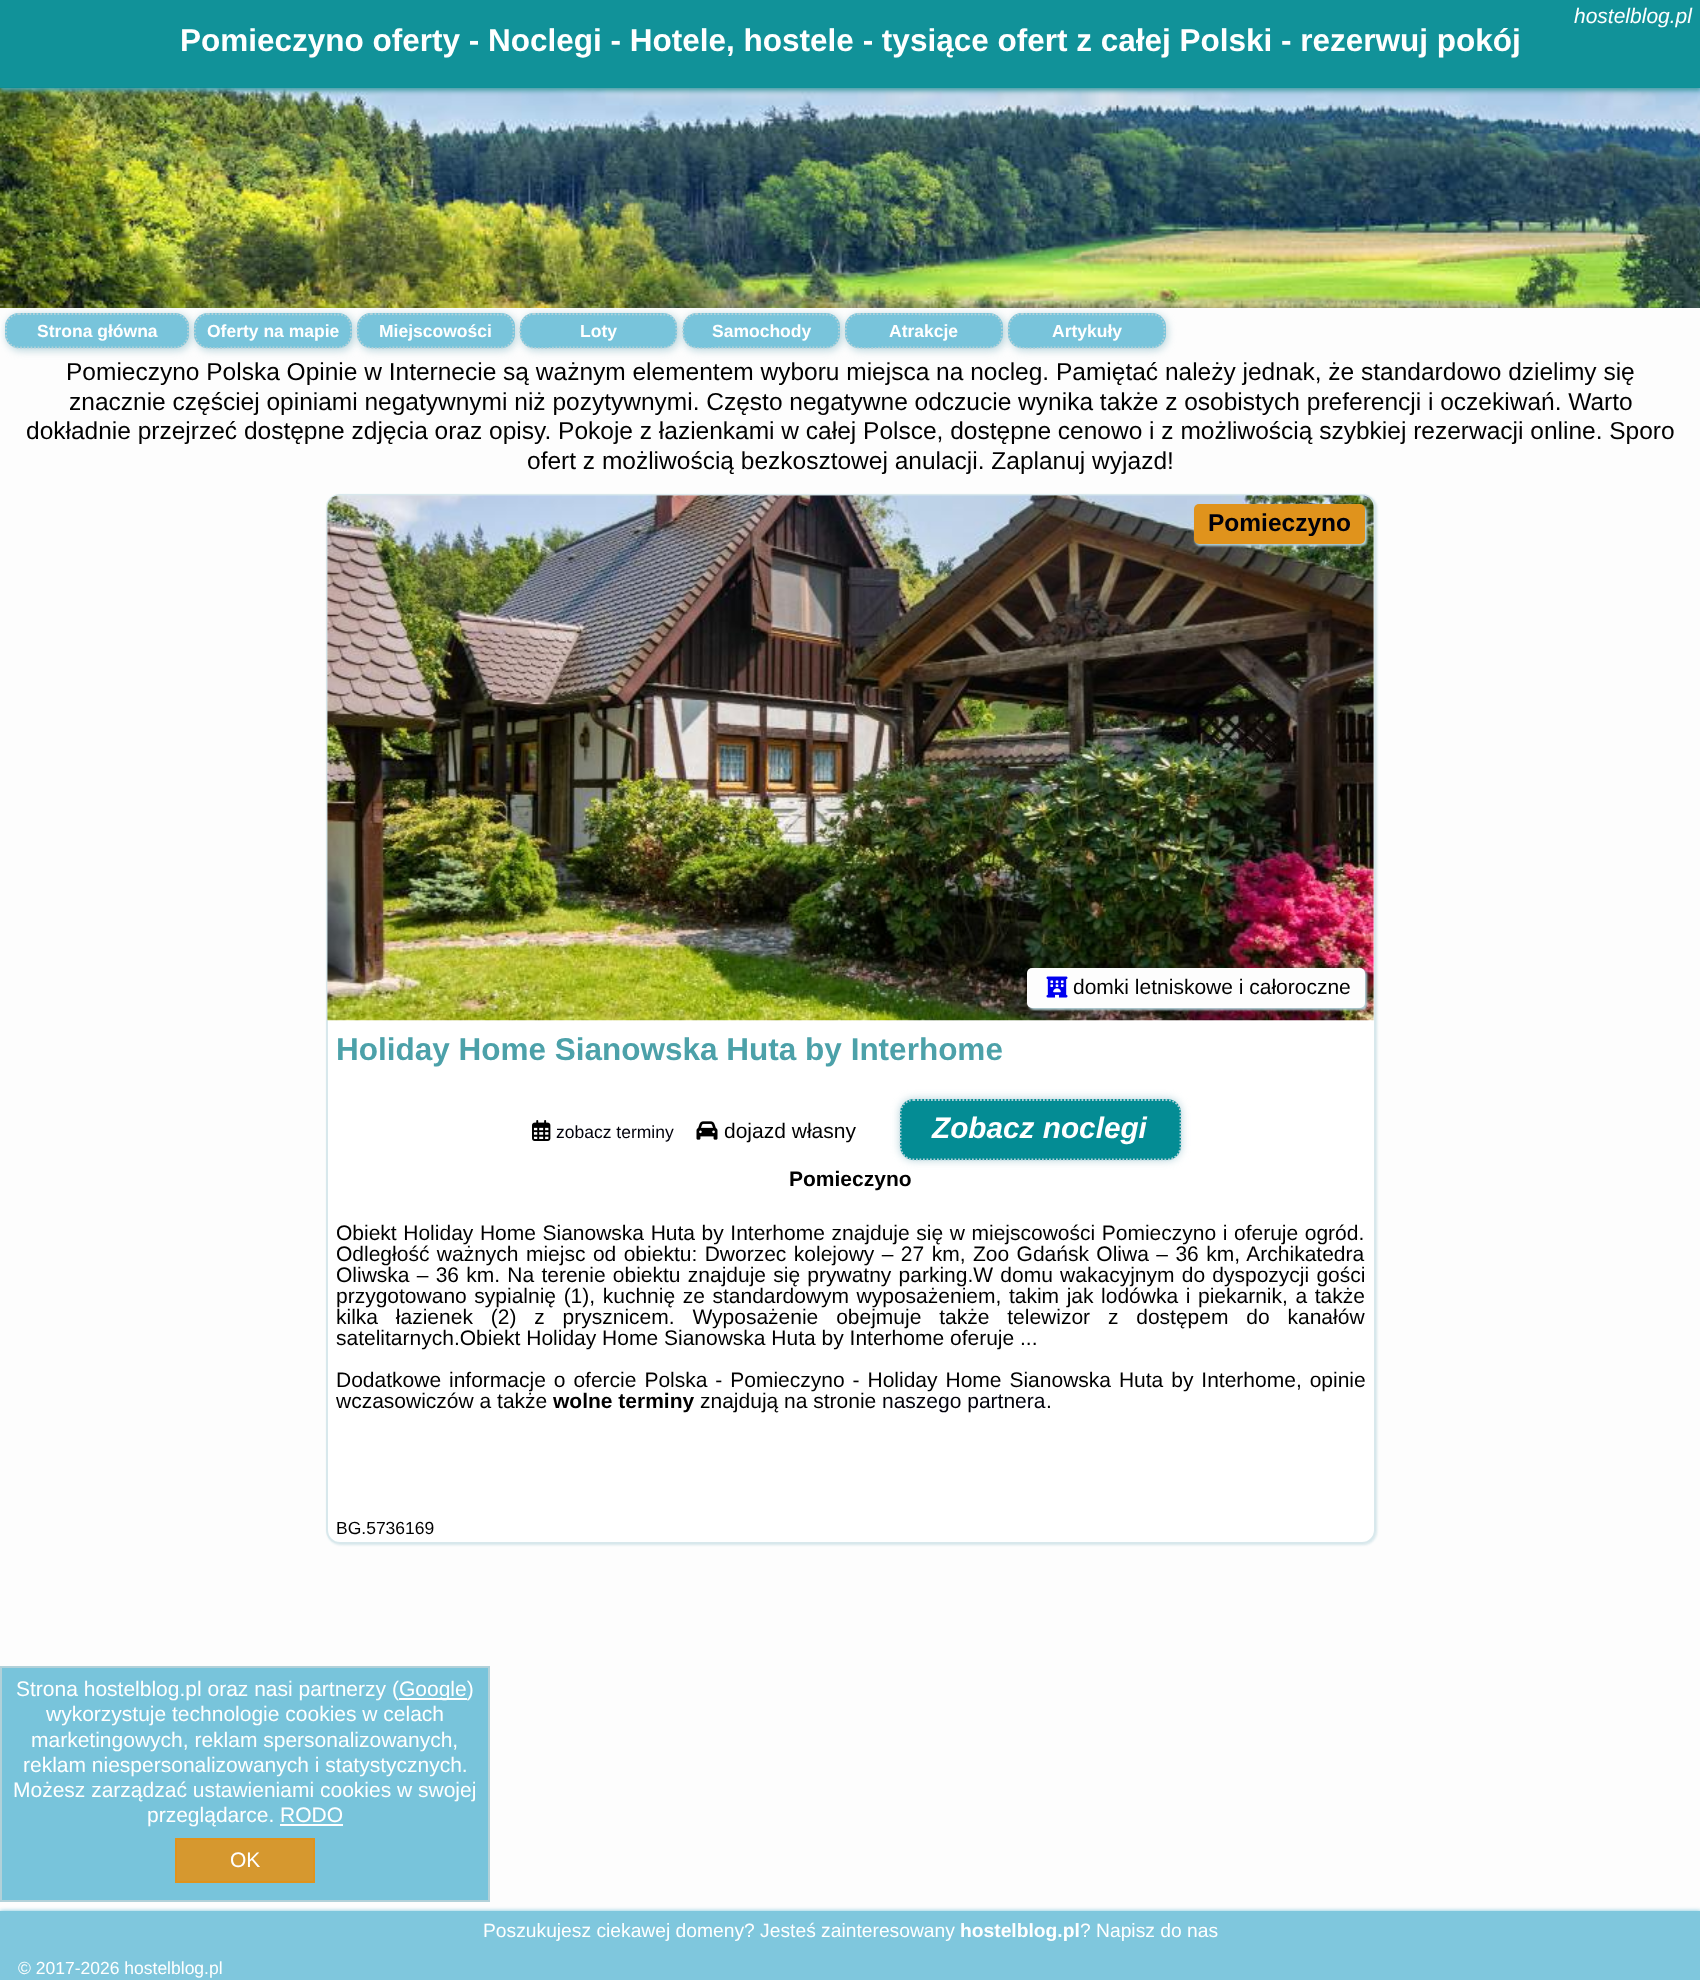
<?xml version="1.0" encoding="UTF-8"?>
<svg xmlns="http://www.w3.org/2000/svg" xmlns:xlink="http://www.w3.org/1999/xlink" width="1700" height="1980">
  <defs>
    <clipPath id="clip1"><path d="M 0 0 h 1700 v 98 h -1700 z m 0 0 h 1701 v 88 h -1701 z" clip-rule="evenodd" /></clipPath>
    <clipPath id="clip2"><rect x="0" y="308" width="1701" height="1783" /></clipPath>
  </defs>
  <rect width="100%" height="100%" fill="#fdfdfd" />
  <image x="0" y="87" width="1700" height="221" xlink:href="image1.png" />
  <g clip-path="url(#clip1)">
    <rect y="4" width="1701" height="87" fill="#4ca1a9" filter="blur(2px)" />
  </g>
  <rect width="1700" height="88" fill="#048c94" fill-opacity="0.95" />
  <g clip-path="url(#clip2)">
    <rect x="7" y="315" width="184" height="35" rx="14" fill="#b2d1d9" filter="blur(4.5px)" />
  </g>
  <rect x="5" y="313" width="184" height="35" rx="14" fill="#78c4db" />
  <path d="M 19 314 h 156 c 7 0 13 6 13 13 v 7 c 0 7.5 -6 13.5 -13 13.5 h -156 c -7 0 -13 -6 -13 -13.5 v -7 c 0 -7 6 -13 13 -13 z" fill="none" stroke="#b2d1d9" stroke-width="1.8" stroke-dasharray="1.75 1.75" />
  <g clip-path="url(#clip2)">
    <rect x="196" y="315" width="158" height="35" rx="14" fill="#b2d1d9" filter="blur(4.5px)" />
  </g>
  <rect x="194" y="313" width="158" height="35" rx="14" fill="#78c4db" />
  <path d="M 208 314 l 132.5 0.5 c 9 1.5 10.5 9 10.5 17 c 0 8.5 -3.5 16 -13 16 h -108 c -1.5 0 -20 2 -27 -1 c -12.5 -5.5 -11 -32.5 5 -32.5 z" fill="none" stroke="#b2d1d9" stroke-width="1.8" stroke-dasharray="1.75 1.75" />
  <g clip-path="url(#clip2)">
    <rect x="359" y="315" width="157" height="35" rx="14" fill="#b2d1d9" filter="blur(4.5px)" />
  </g>
  <rect x="357" y="313" width="158" height="35" rx="14" fill="#78c4db" />
  <path d="M 371 314 l 132 0.5 c 9 1.5 10.5 9 10.5 17 c 0 8.5 -3.5 16 -13 16 h -108 c -1.5 0 -19.5 2 -26.5 -1 c -12.5 -5.5 -11.5 -32.5 5 -32.5 z" fill="none" stroke="#b2d1d9" stroke-width="1.8" stroke-dasharray="1.75 1.75" />
  <g clip-path="url(#clip2)">
    <rect x="522" y="315" width="157" height="35" rx="14" fill="#b2d1d9" filter="blur(4.5px)" />
  </g>
  <rect x="520" y="313" width="157" height="35" rx="14" fill="#78c4db" />
  <path d="M 534 314 l 132 0.5 c 9 1.5 10.5 9 10.5 17 c 0 8.5 -3.5 16 -13.5 16 h -107.5 c -1.5 0 -20 2 -27 -1 c -12.5 -5.5 -11 -32.5 5.5 -32.5 z" fill="none" stroke="#b2d1d9" stroke-width="1.8" stroke-dasharray="1.75 1.75" />
  <g clip-path="url(#clip2)">
    <rect x="684" y="315" width="158" height="35" rx="14" fill="#b2d1d9" filter="blur(4.5px)" />
  </g>
  <rect x="683" y="313" width="157" height="35" rx="14" fill="#78c4db" />
  <path d="M 696.5 314 l 132 0.5 c 9 1.5 10.5 9 10.5 17 c 0 8.5 -3.5 16 -13 16 h -108 c -1.5 0 -19.5 2 -26.5 -1 c -12.5 -5.5 -11.5 -32.5 5 -32.5 z" fill="none" stroke="#b2d1d9" stroke-width="1.8" stroke-dasharray="1.75 1.75" />
  <g clip-path="url(#clip2)">
    <rect x="847" y="315" width="158" height="35" rx="14" fill="#b2d1d9" filter="blur(4.5px)" />
  </g>
  <rect x="845" y="313" width="158" height="35" rx="14" fill="#78c4db" />
  <path d="M 859 314 l 132.5 0.5 c 9 1.5 10.5 9 10.5 17 c 0 8.5 -3.5 16 -13 16 h -108 c -1.5 0 -20 2 -27 -1 c -12.5 -5.5 -11 -32.5 5 -32.5 z" fill="none" stroke="#b2d1d9" stroke-width="1.8" stroke-dasharray="1.75 1.75" />
  <g clip-path="url(#clip2)">
    <rect x="1010" y="315" width="157" height="35" rx="14" fill="#b2d1d9" filter="blur(4.5px)" />
  </g>
  <rect x="1008" y="313" width="158" height="35" rx="14" fill="#78c4db" />
  <path d="M 1022 314 l 132 0.5 c 9 1.5 10.5 9 10.5 17 c 0 8.5 -3.5 16 -13 16 h -108 c -1.5 0 -19.5 2 -26.5 -1 c -12.5 -5.5 -11.5 -32.5 5 -32.5 z" fill="none" stroke="#b2d1d9" stroke-width="1.8" stroke-dasharray="1.75 1.75" />
  <rect x="327" y="495" width="1050" height="1050" rx="14" fill="#b2d1d9" fill-opacity="0.5" filter="blur(1px)" />
  <rect x="326" y="494" width="1050" height="1050" rx="14" fill="#ffffff" />
  <rect x="327" y="495" width="1048" height="1048" rx="13" fill="none" stroke="#b2d1d9" stroke-opacity="0.5" stroke-width="2" />
  <image x="327" y="495" width="1047" height="526" xlink:href="image2.png" />
  <rect x="1195" y="506" width="172" height="40" rx="5" fill="#b2d1d9" filter="blur(1px)" />
  <rect x="1194" y="504" width="171" height="40" rx="5" fill="#e0931c" />
  <rect x="1029" y="970" width="338" height="40" rx="5" fill="#b2d1d9" filter="blur(1px)" />
  <rect x="1027" y="968" width="338" height="40" rx="5" fill="#fdfdfd" />
  <image x="1046" y="976" width="22" height="22" xlink:href="image3.png" />
  <image x="532" y="1120" width="19" height="21" xlink:href="image4.png" />
  <image x="696" y="1121" width="22" height="19" xlink:href="image5.png" />
  <rect x="900" y="1099" width="281" height="61" rx="14" fill="#b2d1d9" filter="blur(4.5px)" />
  <rect x="900" y="1099" width="281" height="61" rx="14" fill="#048c94" />
  <path d="M 913.5 1100 h 253.5 c 7.5 0 13.5 6 13.5 13 v 33 c 0 7.5 -6 13.5 -13.5 13.5 h -253.5 c -7 0 -13 -6 -13 -13.5 v -33 c 0 -7 6 -13 13 -13 z" fill="none" stroke="#b2d1d9" stroke-width="1.8" stroke-dasharray="1.75 1.75" />
  <rect x="1" y="1667" width="488" height="234" fill="#78c4db" stroke="#b2d1d9" stroke-width="2" />
  <rect x="399" y="1698" width="68" height="2" fill="#ffffff" />
  <rect x="280" y="1824" width="63" height="2" fill="#ffffff" />
  <rect x="176" y="1839" width="138" height="43" fill="#d6982f" stroke="#e0931c" stroke-width="2" />
  <rect y="1911" width="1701" height="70" fill="#78c4db" filter="blur(2px)" />
  <rect y="1911" width="1700" height="69" fill="#7fc7dd" />
  <text x="1574" y="23" style="font-family: Liberation Sans; font-size: 21px; font-style: italic; fill: #ffffff">hostelblog.pl</text>
  <text x="180" y="51" style="font-family: Liberation Sans; font-size: 31.5px; font-weight: bold; fill: #ffffff">Pomieczyno oferty - Noclegi - Hotele, hostele - tysiące ofert z całej Polski - rezerwuj pokój</text>
  <text x="37" y="337" style="font-family: Liberation Sans; font-size: 17.5px; font-weight: bold; fill: #ffffff">Strona główna</text>
  <text x="207" y="337" style="font-family: Liberation Sans; font-size: 17.5px; font-weight: bold; fill: #ffffff">Oferty na mapie</text>
  <text x="379" y="337" style="font-family: Liberation Sans; font-size: 17.5px; font-weight: bold; fill: #ffffff">Miejscowości</text>
  <text x="580" y="337" style="font-family: Liberation Sans; font-size: 17.5px; font-weight: bold; fill: #ffffff">Loty</text>
  <text x="712" y="337" style="font-family: Liberation Sans; font-size: 17.5px; font-weight: bold; fill: #ffffff">Samochody</text>
  <text x="889" y="337" style="font-family: Liberation Sans; font-size: 17.5px; font-weight: bold; fill: #ffffff">Atrakcje</text>
  <text x="1052" y="337" style="font-family: Liberation Sans; font-size: 17.5px; font-weight: bold; fill: #ffffff">Artykuły</text>
  <text x="66" y="380" style="font-family: Liberation Sans; font-size: 24.5px; fill: #000000">Pomieczyno Polska Opinie w Internecie są ważnym elementem wyboru miejsca na nocleg. Pamiętać należy jednak, że standardowo dzielimy się</text>
  <text x="69" y="410" style="font-family: Liberation Sans; font-size: 24.5px; fill: #000000">znacznie częściej opiniami negatywnymi niż pozytywnymi. Często negatywne odczucie wynika także z osobistych preferencji i oczekiwań. Warto</text>
  <text x="26" y="439" style="font-family: Liberation Sans; font-size: 24.5px; fill: #000000">dokładnie przejrzeć dostępne zdjęcia oraz opisy. Pokoje z łazienkami w całej Polsce, dostępne cenowo i z możliwością szybkiej rezerwacji online. Sporo</text>
  <text x="527" y="469" style="font-family: Liberation Sans; font-size: 24.5px; fill: #000000">ofert z możliwością bezkosztowej anulacji. Zaplanuj wyjazd!</text>
  <text x="1208" y="531" style="font-family: Liberation Sans; font-size: 24.5px; font-weight: bold; fill: #01010b">Pomieczyno</text>
  <text x="1073" y="994" style="font-family: Liberation Sans; font-size: 21px; fill: #000000">domki letniskowe i całoroczne</text>
  <text x="336" y="1060" style="font-family: Liberation Sans; font-size: 31.5px; font-weight: bold; fill: #4ca1a9">Holiday Home Sianowska Huta by Interhome</text>
  <text x="556" y="1138" style="font-family: Liberation Sans; font-size: 17.5px; fill: #01010b">zobacz terminy</text>
  <text x="724" y="1138" style="font-family: Liberation Sans; font-size: 21px; fill: #000000">dojazd własny</text>
  <text x="932" y="1138" style="font-family: Liberation Sans; font-size: 29.75px; font-weight: bold; font-style: italic; fill: #ffffff">Zobacz noclegi</text>
  <text x="789" y="1186" style="font-family: Liberation Sans; font-size: 21px; font-weight: bold; fill: #000000">Pomieczyno</text>
  <text x="336" y="1240" word-spacing="0.75" style="font-family: Liberation Sans; font-size: 21px; fill: #000000">Obiekt Holiday Home Sianowska Huta by Interhome znajduje się w miejscowości Pomieczyno i oferuje ogród.</text>
  <text x="336" y="1261" word-spacing="1.6" style="font-family: Liberation Sans; font-size: 21px; fill: #000000">Odległość ważnych miejsc od obiektu: Dworzec kolejowy – 27 km, Zoo Gdańsk Oliwa – 36 km, Archikatedra</text>
  <text x="336" y="1282" word-spacing="1.4" style="font-family: Liberation Sans; font-size: 21px; fill: #000000">Oliwska – 36 km. Na terenie obiektu znajduje się prywatny parking.W domu wakacyjnym do dyspozycji gości</text>
  <text x="336" y="1303" word-spacing="1.75" style="font-family: Liberation Sans; font-size: 21px; fill: #000000">przygotowano sypialnię (1), kuchnię ze standardowym wyposażeniem, takim jak lodówka i piekarnik, a także</text>
  <text x="336" y="1324" word-spacing="12" style="font-family: Liberation Sans; font-size: 21px; fill: #000000">kilka łazienek (2) z prysznicem. Wyposażenie obejmuje także telewizor z dostępem do kanałów</text>
  <text x="336" y="1345" style="font-family: Liberation Sans; font-size: 21px; fill: #000000">satelitarnych.Obiekt Holiday Home Sianowska Huta by Interhome oferuje ...</text>
  <text x="336" y="1387" word-spacing="2.1" style="font-family: Liberation Sans; font-size: 21px; fill: #000000">Dodatkowe informacje o ofercie Polska - Pomieczyno - Holiday Home Sianowska Huta by Interhome, opinie</text>
  <text x="336" y="1408" style="font-family: Liberation Sans; font-size: 21px; fill: #000000">wczasowiczów a także</text>
  <text x="553" y="1408" style="font-family: Liberation Sans; font-size: 21px; font-weight: bold; fill: #000000">wolne terminy</text>
  <text x="700" y="1408" style="font-family: Liberation Sans; font-size: 21px; fill: #000000">znajdują na stronie</text>
  <text x="882" y="1408" style="font-family: Liberation Sans; font-size: 21px; fill: #01010b">naszego partnera</text>
  <text x="1046" y="1408" style="font-family: Liberation Sans; font-size: 21px; fill: #000000">.</text>
  <text x="336" y="1534" style="font-family: Liberation Sans; font-size: 17.5px; fill: #000000">BG.5736169</text>
  <text x="16" y="1696" style="font-family: Liberation Sans; font-size: 21px; fill: #ffffff">Strona hostelblog.pl oraz nasi partnerzy (</text>
  <text x="399" y="1696" style="font-family: Liberation Sans; font-size: 21px; fill: #ffffff">Google)</text>
  <text x="46" y="1721" style="font-family: Liberation Sans; font-size: 21px; fill: #ffffff">wykorzystuje technologie cookies w celach</text>
  <text x="31" y="1747" style="font-family: Liberation Sans; font-size: 21px; fill: #ffffff">marketingowych, reklam spersonalizowanych,</text>
  <text x="23" y="1772" style="font-family: Liberation Sans; font-size: 21px; fill: #ffffff">reklam niespersonalizowanych i statystycznych.</text>
  <text x="13" y="1797" style="font-family: Liberation Sans; font-size: 21px; fill: #ffffff">Możesz zarządzać ustawieniami cookies w swojej</text>
  <text x="147" y="1822" style="font-family: Liberation Sans; font-size: 21px; fill: #ffffff">przeglądarce. RODO</text>
  <text x="230" y="1867" style="font-family: Liberation Sans; font-size: 21px; fill: #ffffff">OK</text>
  <text x="483" y="1937" style="font-family: Liberation Sans; font-size: 19.25px; fill: #ffffff">Poszukujesz ciekawej domeny? Jesteś zainteresowany</text>
  <text x="960" y="1937" style="font-family: Liberation Sans; font-size: 19.25px; font-weight: bold; fill: #ffffff">hostelblog.pl</text>
  <text x="1080" y="1937" style="font-family: Liberation Sans; font-size: 19.25px; fill: #ffffff">? Napisz do nas</text>
  <text x="18" y="1974" style="font-family: Liberation Sans; font-size: 17.5px; fill: #ffffff">© 2017-2026 hostelblog.pl</text>
</svg>
